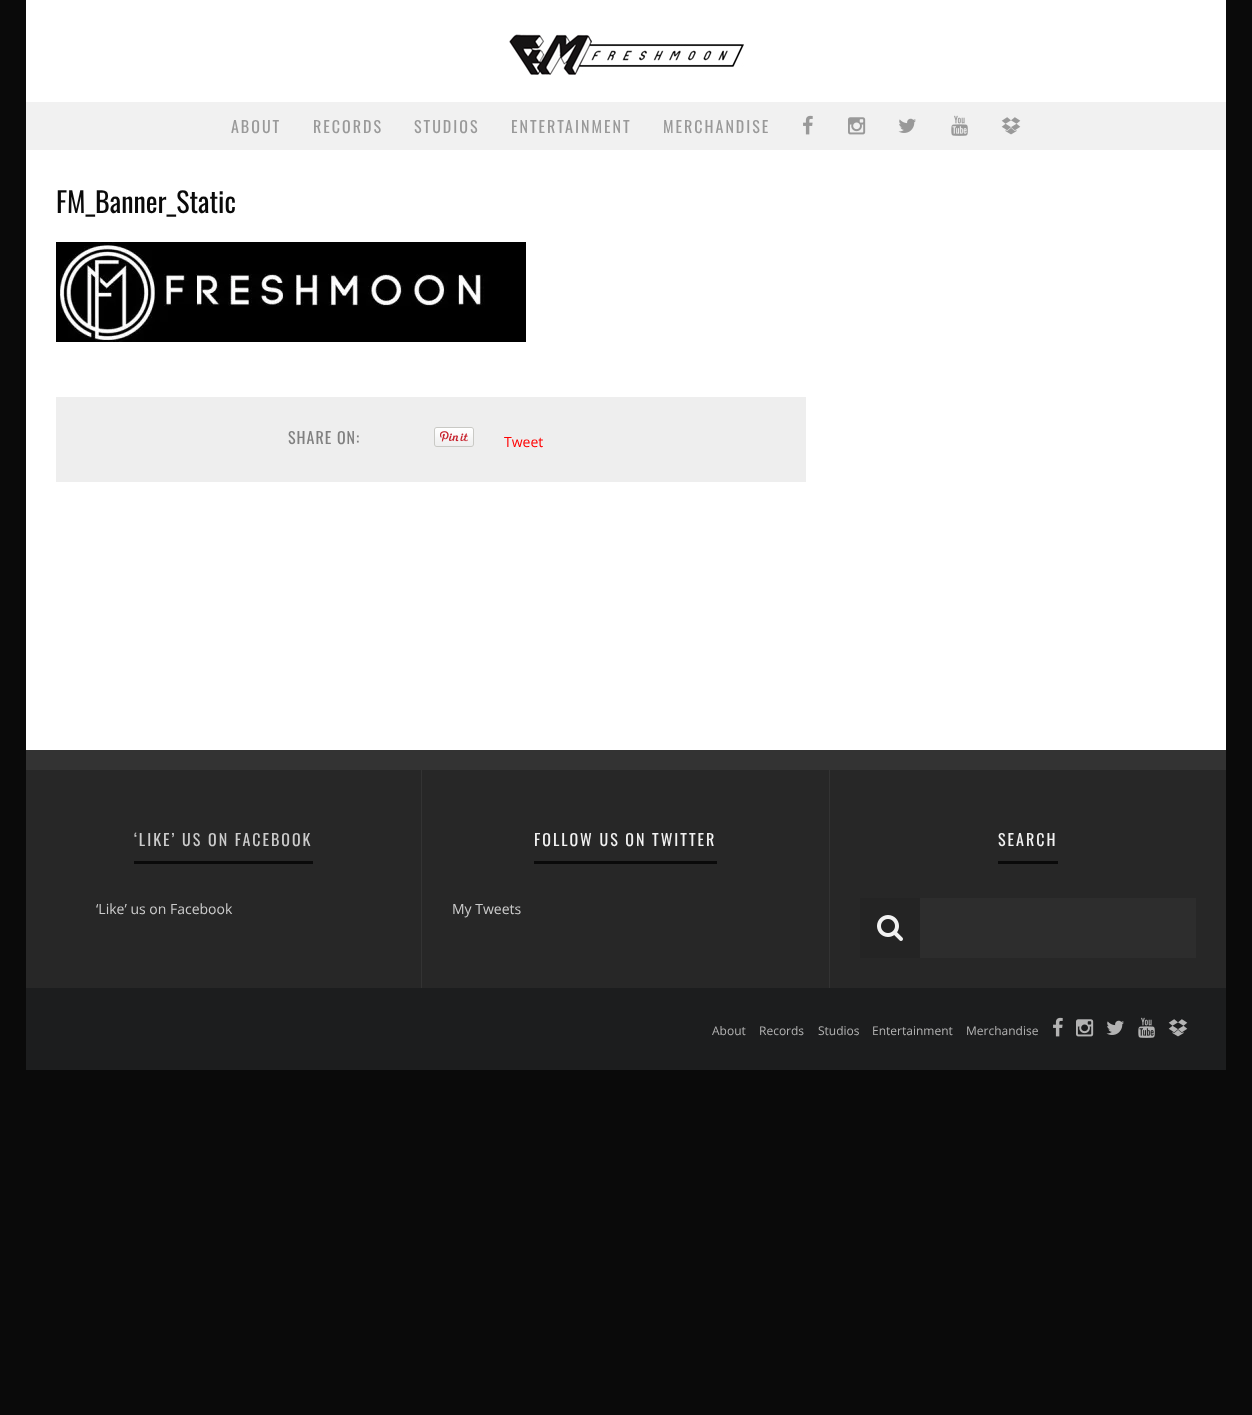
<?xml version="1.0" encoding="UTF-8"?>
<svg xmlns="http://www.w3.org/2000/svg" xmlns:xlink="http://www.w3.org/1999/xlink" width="1252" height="1415">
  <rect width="100%" height="100%" fill="#0a0a0a" />
  <rect x="26" width="1200" height="102" fill="#ffffff" />
  <image x="509" y="34" width="235" height="41" xlink:href="image1.png" />
  <rect x="26" y="102" width="1200" height="48" fill="#f1f1f1" />
  <image x="803" y="115" width="10" height="20" xlink:href="image2.png" />
  <image x="848" y="117" width="18" height="18" xlink:href="image3.png" />
  <image x="898" y="118" width="18" height="15" xlink:href="image4.png" />
  <image x="951" y="115" width="17" height="21" xlink:href="image5.png" />
  <image x="1001" y="117" width="20" height="18" xlink:href="image6.png" />
  <rect x="26" y="150" width="1200" height="600" fill="#ffffff" />
  <image x="56" y="242" width="470" height="100" xlink:href="image7.png" />
  <rect x="56" y="397" width="750" height="85" fill="#eeeeee" />
  <image x="434" y="427" width="40" height="20" xlink:href="image8.png" />
  <rect x="26" y="770" width="1200" height="218" fill="#272727" />
  <rect x="26" y="750" width="1200" height="20" fill="#333333" />
  <rect x="421" y="770" width="1" height="218" fill="#333333" />
  <rect x="134" y="861" width="179" height="3" fill="#0a0a0a" />
  <rect x="829" y="770" width="1" height="218" fill="#333333" />
  <rect x="534" y="861" width="183" height="3" fill="#0a0a0a" />
  <rect x="998" y="861" width="60" height="3" fill="#0a0a0a" />
  <rect x="860" y="898" width="60" height="60" fill="#242424" />
  <image x="877" y="915" width="26" height="26" xlink:href="image9.png" />
  <rect x="920" y="898" width="276" height="60" fill="#2d2d2d" />
  <rect x="26" y="988" width="1200" height="82" fill="#1c1d1e" />
  <image x="1053" y="1017" width="10" height="20" xlink:href="image10.png" />
  <image x="1076" y="1019" width="18" height="18" xlink:href="image11.png" />
  <image x="1106" y="1020" width="18" height="15" xlink:href="image12.png" />
  <image x="1138" y="1017" width="17" height="21" xlink:href="image13.png" />
  <image x="1168" y="1019" width="20" height="18" xlink:href="image14.png" />
  <text x="231" y="133" style="font-family: Oswald; font-size: 16px; letter-spacing: 2px; fill: #999999">ABOUT</text>
  <text x="313" y="133" style="font-family: Oswald; font-size: 16px; letter-spacing: 2px; fill: #999999">RECORDS</text>
  <text x="414" y="133" style="font-family: Oswald; font-size: 16px; letter-spacing: 2px; fill: #999999">STUDIOS</text>
  <text x="511" y="133" style="font-family: Oswald; font-size: 16px; letter-spacing: 2px; fill: #999999">ENTERTAINMENT</text>
  <text x="663" y="133" style="font-family: Oswald; font-size: 16px; letter-spacing: 2px; fill: #999999">MERCHANDISE</text>
  <text x="56" y="213" style="font-family: Oswald; font-size: 28px; fill: #0a0a0a">FM_Banner_Static</text>
  <text x="288" y="444" style="font-family: Oswald; font-size: 16px; letter-spacing: 1px; fill: #808080">SHARE ON:</text>
  <text x="504" y="447" style="font-family: Open Sans; font-size: 14px; fill: #ff0000">Tweet</text>
  <text x="134" y="846" style="font-family: Oswald; font-size: 16px; letter-spacing: 2px; fill: #cccccc">‘LIKE’ US ON FACEBOOK</text>
  <text x="96" y="914" style="font-family: Open Sans; font-size: 14px; fill: #cccccc">‘Like’ us on Facebook</text>
  <text x="534" y="846" style="font-family: Oswald; font-size: 16px; letter-spacing: 2px; fill: #f2f2f2">FOLLOW US ON TWITTER</text>
  <text x="452" y="914" style="font-family: Open Sans; font-size: 14px; fill: #cccccc">My Tweets</text>
  <text x="998" y="846" style="font-family: Oswald; font-size: 16px; letter-spacing: 2px; fill: #f2f2f2">SEARCH</text>
  <text x="712" y="1035" style="font-family: Open Sans; font-size: 12px; fill: #b3b3b3">About</text>
  <text x="759" y="1035" style="font-family: Open Sans; font-size: 12px; fill: #b3b3b3">Records</text>
  <text x="818" y="1035" style="font-family: Open Sans; font-size: 12px; fill: #b3b3b3">Studios</text>
  <text x="872" y="1035" style="font-family: Open Sans; font-size: 12px; fill: #b3b3b3">Entertainment</text>
  <text x="966" y="1035" style="font-family: Open Sans; font-size: 12px; fill: #b3b3b3">Merchandise</text>
</svg>
